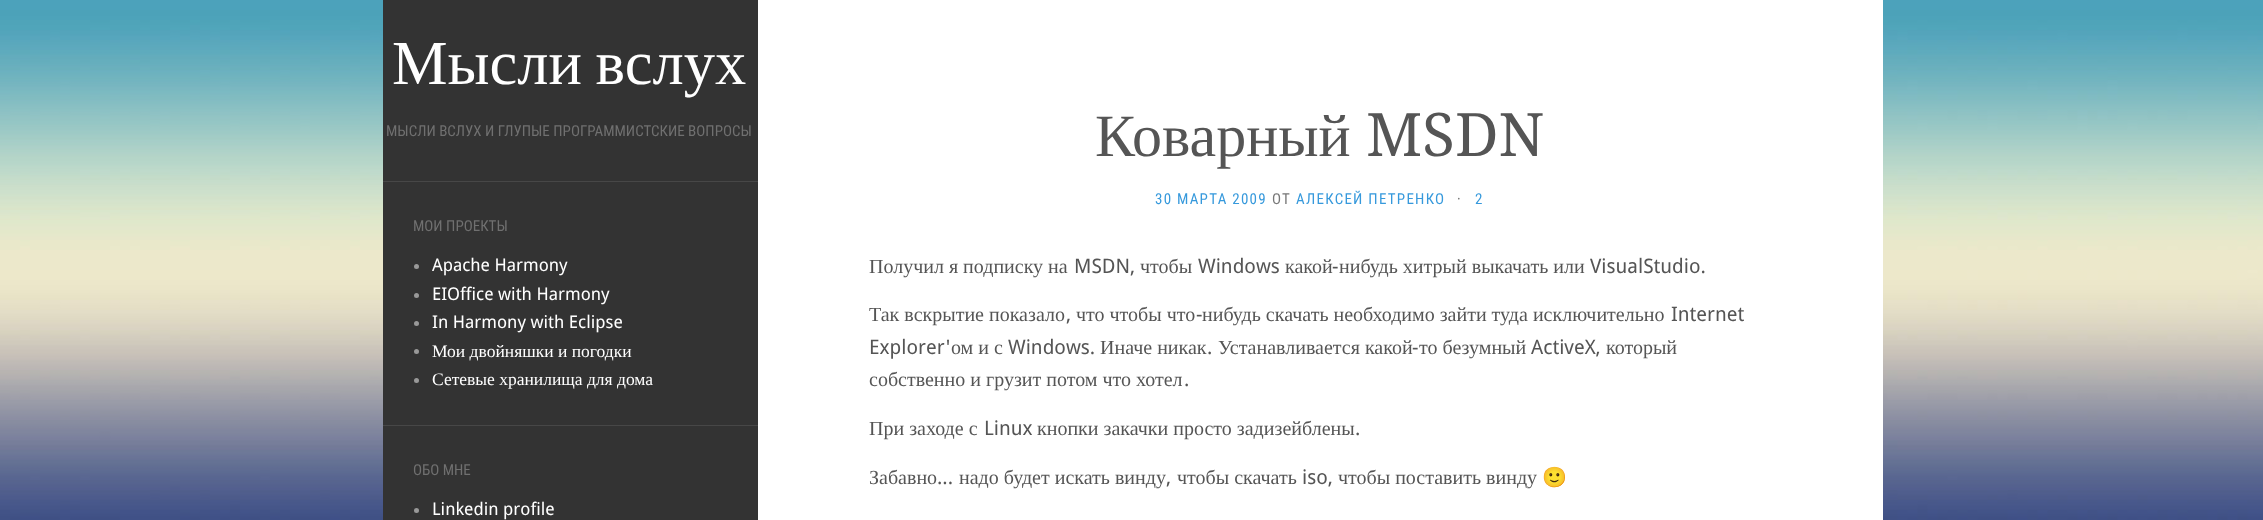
<?xml version="1.0" encoding="UTF-8"?>
<svg xmlns="http://www.w3.org/2000/svg" xmlns:xlink="http://www.w3.org/1999/xlink" width="2263" height="520">
  <rect width="100%" height="100%" fill="#ffffff" />
  <image x="0" y="0" width="2263" height="520" xlink:href="image1.png" />
  <rect x="758" width="1125" height="520" fill="#ffffff" />
  <rect x="383" width="375" height="520" fill="#333333" />
  <rect x="383" y="181" width="375" height="1" fill="#474747" />
  <rect x="383" y="425" width="375" height="1" fill="#474747" />
  <circle cx="416.5" cy="266.5" r="2.5" fill="#999999" />
  <circle cx="416.5" cy="295.5" r="2.5" fill="#999999" />
  <circle cx="416.5" cy="323.5" r="2.5" fill="#999999" />
  <circle cx="416.5" cy="351.5" r="2.5" fill="#999999" />
  <circle cx="416.5" cy="380.5" r="2.5" fill="#999999" />
  <circle cx="416.5" cy="510.5" r="2.5" fill="#999999" />
  <text x="392" y="84" word-spacing="-2" style="font-family: Liberation Serif; font-size: 62.5px; fill: #ffffff">Мысли вслух</text>
  <text x="386" y="136" style="font-family: Roboto Condensed; font-size: 15px; fill: #707070">МЫСЛИ ВСЛУХ И ГЛУПЫЕ ПРОГРАММИСТСКИЕ ВОПРОСЫ</text>
  <text x="413" y="231" style="font-family: Roboto Condensed; font-size: 15px; fill: #707070">МОИ ПРОЕКТЫ</text>
  <text x="432" y="271" style="font-family: Droid Sans; font-size: 17.5px; fill: #ffffff">Apache Harmony</text>
  <text x="432" y="300" style="font-family: Droid Sans; font-size: 17.5px; fill: #ffffff">EIOffice with Harmony</text>
  <text x="432" y="328" style="font-family: Droid Sans; font-size: 17.5px; fill: #ffffff">In Harmony with Eclipse</text>
  <text x="432" y="357" style="font-family: Liberation Serif; font-size: 17.5px; fill: #ffffff">Мои двойняшки и погодки</text>
  <text x="432" y="385" style="font-family: Liberation Serif; font-size: 17.5px; fill: #ffffff">Сетевые хранилища для дома</text>
  <text x="413" y="475" style="font-family: Roboto Condensed; font-size: 15px; fill: #707070">ОБО МНЕ</text>
  <text x="432" y="515" style="font-family: Droid Sans; font-size: 17.5px; fill: #ffffff">Linkedin profile</text>
  <text x="1095" y="156" style="font-family: Liberation Serif; font-size: 60px; fill: #555555">Коварный</text>
  <text x="1366" y="156" style="font-family: Droid Serif; font-size: 60px; fill: #555555">MSDN</text>
  <text x="1155" y="204" style="font-family: Roboto Condensed; font-size: 15px; letter-spacing: 1.25px; fill: #3699dc">30 МАРТА 2009</text>
  <text x="1272" y="204" style="font-family: Roboto Condensed; font-size: 15px; letter-spacing: 1.25px; fill: #777777">ОТ</text>
  <text x="1296" y="204" style="font-family: Roboto Condensed; font-size: 15px; letter-spacing: 1.25px; fill: #3699dc">АЛЕКСЕЙ ПЕТРЕНКО</text>
  <text x="1457" y="204" style="font-family: Roboto Condensed; font-size: 15px; letter-spacing: 1.25px; fill: #777777">·</text>
  <text x="1475" y="204" style="font-family: Roboto Condensed; font-size: 15px; letter-spacing: 1.25px; fill: #3699dc">2</text>
  <text x="869" y="273" style="font-family: Liberation Serif; font-size: 20px; fill: #555555">Получил я подписку на</text>
  <text x="1074" y="273" style="font-family: Droid Sans; font-size: 20px; fill: #555555">MSDN,</text>
  <text x="1140" y="273" style="font-family: Liberation Serif; font-size: 20px; fill: #555555">чтобы</text>
  <text x="1198" y="273" style="font-family: Droid Sans; font-size: 20px; fill: #555555">Windows</text>
  <text x="1285" y="273" style="font-family: Liberation Serif; font-size: 20px; fill: #555555">какой</text>
  <text x="1332" y="273" style="font-family: Droid Sans; font-size: 20px; fill: #555555">-</text>
  <text x="1339" y="273" style="font-family: Liberation Serif; font-size: 20px; fill: #555555">нибудь хитрый выкачать или</text>
  <text x="1590" y="273" style="font-family: Droid Sans; font-size: 20px; fill: #555555">VisualStudio.</text>
  <text x="869" y="321" style="font-family: Liberation Serif; font-size: 20px; fill: #555555">Так вскрытие показало</text>
  <text x="1076" y="321" style="font-family: Liberation Serif; font-size: 20px; fill: #555555">что чтобы что</text>
  <text x="1196" y="321" style="font-family: Droid Sans; font-size: 20px; fill: #555555">-</text>
  <text x="1202" y="321" style="font-family: Liberation Serif; font-size: 20px; fill: #555555">нибудь скачать необходимо зайти туда исключительно</text>
  <text x="1671" y="321" style="font-family: Droid Sans; font-size: 20px; fill: #555555">Internet</text>
  <text x="1066" y="321" style="font-family: Droid Sans; font-size: 20px; fill: #555555">,</text>
  <text x="869" y="354" style="font-family: Droid Sans; font-size: 20px; fill: #555555">Explorer'</text>
  <text x="951" y="354" style="font-family: Liberation Serif; font-size: 20px; fill: #555555">ом и с</text>
  <text x="1008" y="354" style="font-family: Droid Sans; font-size: 20px; fill: #555555">Windows.</text>
  <text x="1100" y="354" style="font-family: Liberation Serif; font-size: 20px; fill: #555555">Иначе никак</text>
  <text x="1218" y="354" style="font-family: Liberation Serif; font-size: 20px; fill: #555555">Устанавливается какой</text>
  <text x="1412" y="354" style="font-family: Droid Sans; font-size: 20px; fill: #555555">-</text>
  <text x="1419" y="354" style="font-family: Liberation Serif; font-size: 20px; fill: #555555">то безумный</text>
  <text x="1531" y="354" style="font-family: Droid Sans; font-size: 20px; fill: #555555">ActiveX,</text>
  <text x="1606" y="354" style="font-family: Liberation Serif; font-size: 20px; fill: #555555">который</text>
  <text x="1207" y="354" style="font-family: Droid Sans; font-size: 20px; fill: #555555">.</text>
  <text x="869" y="386" style="font-family: Liberation Serif; font-size: 20px; fill: #555555">собственно и грузит потом что хотел</text>
  <text x="1184" y="386" style="font-family: Droid Sans; font-size: 20px; fill: #555555">.</text>
  <text x="869" y="435" style="font-family: Liberation Serif; font-size: 20px; fill: #555555">При заходе с</text>
  <text x="984" y="435" style="font-family: Droid Sans; font-size: 20px; fill: #555555">Linux</text>
  <text x="1037" y="435" style="font-family: Liberation Serif; font-size: 20px; fill: #555555">кнопки закачки просто задизейблены</text>
  <text x="1355" y="435" style="font-family: Droid Sans; font-size: 20px; fill: #555555">.</text>
  <text x="869" y="484" style="font-family: Liberation Serif; font-size: 20px; fill: #555555">Забавно</text>
  <text x="937" y="484" style="font-family: Droid Sans; font-size: 20px; fill: #555555">...</text>
  <text x="959" y="484" style="font-family: Liberation Serif; font-size: 20px; fill: #555555">надо будет искать винду</text>
  <text x="1166" y="484" style="font-family: Droid Sans; font-size: 20px; fill: #555555">,</text>
  <text x="1177" y="484" style="font-family: Liberation Serif; font-size: 20px; fill: #555555">чтобы скачать</text>
  <text x="1302" y="484" style="font-family: Droid Sans; font-size: 20px; fill: #555555">iso,</text>
  <text x="1338" y="484" style="font-family: Liberation Serif; font-size: 20px; fill: #555555">чтобы поставить винду</text>
  <text x="1542" y="484" style="font-family: Noto Color Emoji; font-size: 20px; fill: #555555">🙂</text>
</svg>
